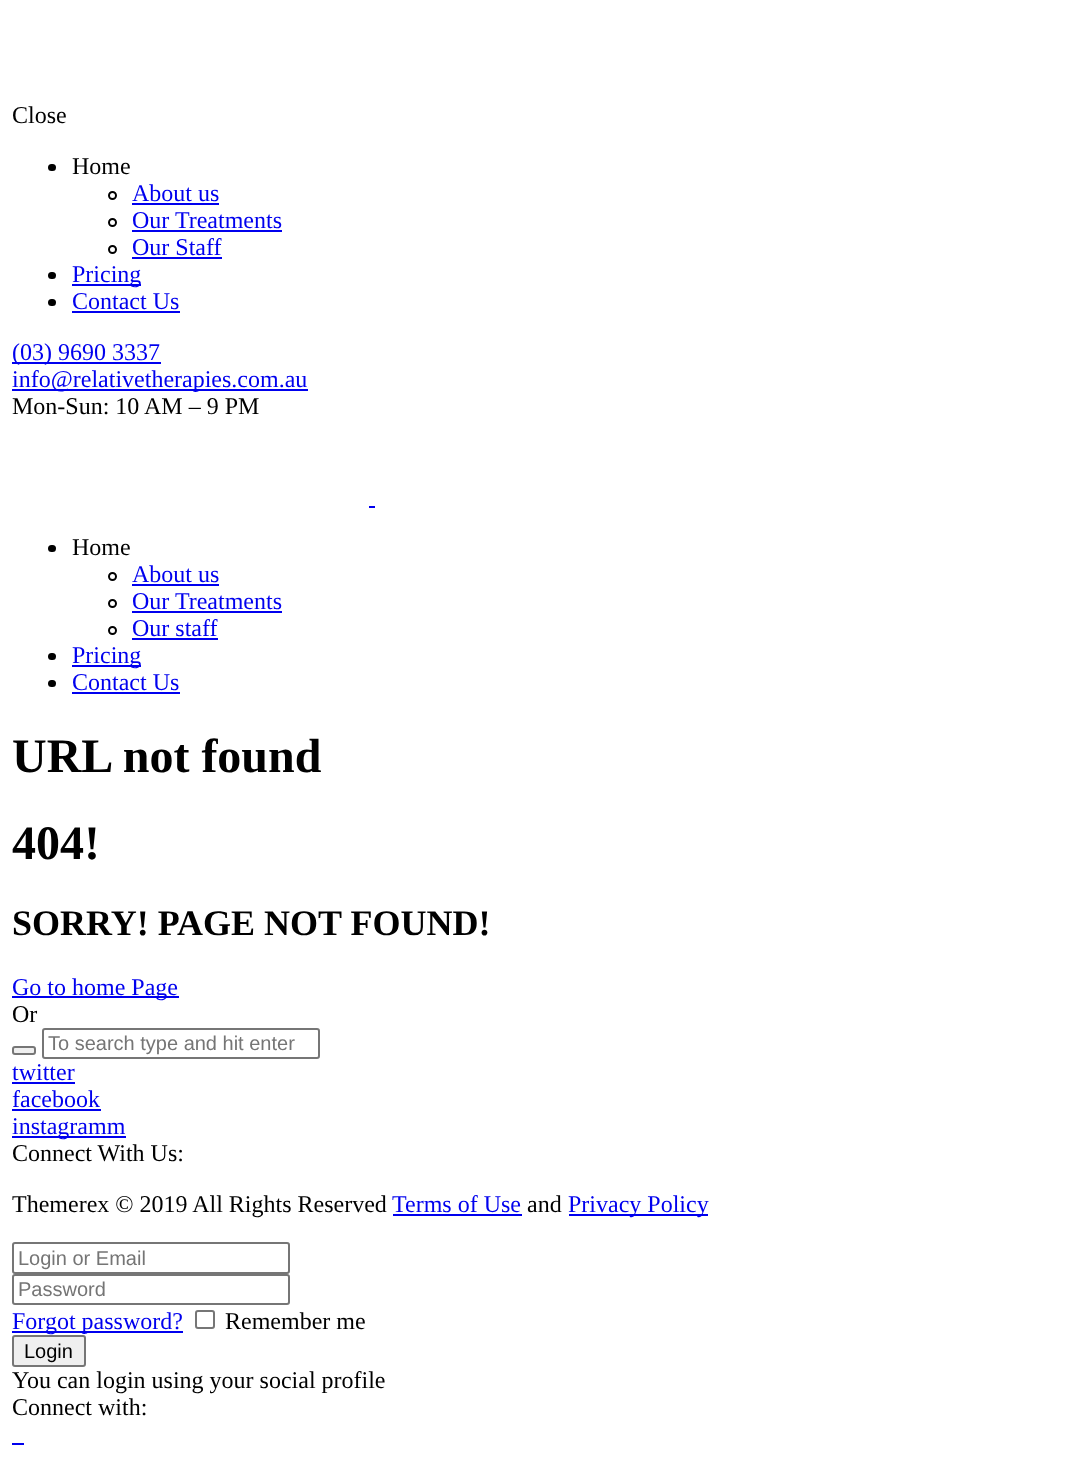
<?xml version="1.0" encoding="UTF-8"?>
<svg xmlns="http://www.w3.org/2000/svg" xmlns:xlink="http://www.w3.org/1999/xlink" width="1086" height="1464">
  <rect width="100%" height="100%" fill="#ffffff" />
  <rect x="48" y="164" width="8" height="7" rx="3.5" fill="#000000" />
  <circle cx="112.5" cy="195.5" r="3.5" fill="none" stroke="#000000" stroke-width="2" />
  <rect x="132" y="203" width="87" height="2" fill="#0000ee" />
  <circle cx="112.5" cy="222.5" r="3.5" fill="none" stroke="#000000" stroke-width="2" />
  <rect x="132" y="230" width="150" height="2" fill="#0000ee" />
  <circle cx="112.5" cy="249.5" r="3.5" fill="none" stroke="#000000" stroke-width="2" />
  <rect x="132" y="257" width="90" height="2" fill="#0000ee" />
  <rect x="48" y="272" width="8" height="7" rx="3.5" fill="#000000" />
  <rect x="72" y="284" width="69" height="2" fill="#0000ee" />
  <rect x="48" y="299" width="8" height="7" rx="3.5" fill="#000000" />
  <rect x="72" y="311" width="108" height="2" fill="#0000ee" />
  <rect x="12" y="362" width="149" height="2" fill="#0000ee" />
  <rect x="12" y="389" width="296" height="2" fill="#0000ee" />
  <rect x="369" y="506" width="6" height="2" fill="#0000ee" />
  <rect x="48" y="545" width="8" height="7" rx="3.5" fill="#000000" />
  <circle cx="112.5" cy="576.5" r="3.5" fill="none" stroke="#000000" stroke-width="2" />
  <rect x="132" y="584" width="87" height="2" fill="#0000ee" />
  <circle cx="112.5" cy="603.5" r="3.5" fill="none" stroke="#000000" stroke-width="2" />
  <rect x="132" y="611" width="150" height="2" fill="#0000ee" />
  <circle cx="112.5" cy="630.5" r="3.5" fill="none" stroke="#000000" stroke-width="2" />
  <rect x="132" y="638" width="86" height="2" fill="#0000ee" />
  <rect x="48" y="653" width="8" height="7" rx="3.5" fill="#000000" />
  <rect x="72" y="665" width="69" height="2" fill="#0000ee" />
  <rect x="48" y="680" width="8" height="7" rx="3.5" fill="#000000" />
  <rect x="72" y="692" width="108" height="2" fill="#0000ee" />
  <rect x="12" y="996" width="167" height="2" fill="#0000ee" />
  <rect x="13" y="1047" width="22" height="7" rx="2" fill="#efefef" stroke="#767676" stroke-width="2" />
  <rect x="43" y="1029" width="276" height="29" rx="2" fill="none" stroke="#767676" stroke-width="2" />
  <rect x="12" y="1082" width="63" height="2" fill="#0000ee" />
  <rect x="12" y="1109" width="89" height="2" fill="#0000ee" />
  <rect x="12" y="1136" width="114" height="2" fill="#0000ee" />
  <rect x="393" y="1214" width="129" height="2" fill="#0000ee" />
  <rect x="569" y="1214" width="139" height="2" fill="#0000ee" />
  <rect x="13" y="1243" width="276" height="30" rx="2" fill="none" stroke="#767676" stroke-width="2" />
  <rect x="13" y="1275" width="276" height="29" rx="2" fill="none" stroke="#767676" stroke-width="2" />
  <rect x="12" y="1331" width="171" height="2" fill="#0000ee" />
  <rect x="196" y="1311" width="18" height="17" rx="2" fill="none" stroke="#767676" stroke-width="2" />
  <rect x="13" y="1336" width="72" height="30" rx="2" fill="#efefef" stroke="#767676" stroke-width="2" />
  <rect x="12" y="1443" width="12" height="2" fill="#0000ee" />
  <text x="12" y="123" style="font-family: Liberation Serif; font-size: 24px; fill: #000000">Close</text>
  <text x="72" y="174" style="font-family: Liberation Serif; font-size: 24px; fill: #000000">Home</text>
  <text x="132" y="201" style="font-family: Liberation Serif; font-size: 24px; fill: #0000ee">About us</text>
  <text x="132" y="228" style="font-family: Liberation Serif; font-size: 24px; fill: #0000ee">Our Treatments</text>
  <text x="132" y="255" style="font-family: Liberation Serif; font-size: 24px; fill: #0000ee">Our Staff</text>
  <text x="72" y="282" style="font-family: Liberation Serif; font-size: 24px; fill: #0000ee">Pricing</text>
  <text x="72" y="309" style="font-family: Liberation Serif; font-size: 24px; fill: #0000ee">Contact Us</text>
  <text x="12" y="360" style="font-family: Liberation Serif; font-size: 24px; fill: #0000ee">(03) 9690 3337</text>
  <text x="12" y="387" style="font-family: Liberation Serif; font-size: 24px; fill: #0000ee">info@relativetherapies.com.au</text>
  <text x="12" y="414" style="font-family: Liberation Serif; font-size: 24px; fill: #000000">Mon-Sun: 10 AM – 9 PM</text>
  <text x="72" y="555" style="font-family: Liberation Serif; font-size: 24px; fill: #000000">Home</text>
  <text x="132" y="582" style="font-family: Liberation Serif; font-size: 24px; fill: #0000ee">About us</text>
  <text x="132" y="609" style="font-family: Liberation Serif; font-size: 24px; fill: #0000ee">Our Treatments</text>
  <text x="132" y="636" style="font-family: Liberation Serif; font-size: 24px; fill: #0000ee">Our staff</text>
  <text x="72" y="663" style="font-family: Liberation Serif; font-size: 24px; fill: #0000ee">Pricing</text>
  <text x="72" y="690" style="font-family: Liberation Serif; font-size: 24px; fill: #0000ee">Contact Us</text>
  <text x="12" y="772" style="font-family: Liberation Serif; font-size: 48px; font-weight: bold; fill: #000000">URL not found</text>
  <text x="12" y="859" style="font-family: Liberation Serif; font-size: 48px; font-weight: bold; fill: #000000">404!</text>
  <text x="12" y="935" style="font-family: Liberation Serif; font-size: 36px; font-weight: bold; fill: #000000">SORRY! PAGE NOT FOUND!</text>
  <text x="12" y="995" style="font-family: Liberation Serif; font-size: 24px; fill: #0000ee">Go to home Page</text>
  <text x="12" y="1022" style="font-family: Liberation Serif; font-size: 24px; fill: #000000">Or</text>
  <text x="48" y="1050" style="font-family: Liberation Sans; font-size: 20px; fill: #757575">To search type and hit enter</text>
  <text x="12" y="1080" style="font-family: Liberation Serif; font-size: 24px; fill: #0000ee">twitter</text>
  <text x="12" y="1107" style="font-family: Liberation Serif; font-size: 24px; fill: #0000ee">facebook</text>
  <text x="12" y="1134" style="font-family: Liberation Serif; font-size: 24px; fill: #0000ee">instagramm</text>
  <text x="12" y="1161" style="font-family: Liberation Serif; font-size: 24px; fill: #000000">Connect With Us:</text>
  <text x="12" y="1212" style="font-family: Liberation Serif; font-size: 24px; fill: #000000">Themerex © 2019 All Rights Reserved</text>
  <text x="392" y="1212" style="font-family: Liberation Serif; font-size: 24px; fill: #0000ee">Terms of Use</text>
  <text x="527" y="1212" style="font-family: Liberation Serif; font-size: 24px; fill: #000000">and</text>
  <text x="568" y="1212" style="font-family: Liberation Serif; font-size: 24px; fill: #0000ee">Privacy Policy</text>
  <text x="18" y="1265" style="font-family: Liberation Sans; font-size: 20px; fill: #757575">Login or Email</text>
  <text x="18" y="1296" style="font-family: Liberation Sans; font-size: 20px; fill: #757575">Password</text>
  <text x="12" y="1329" style="font-family: Liberation Serif; font-size: 24px; fill: #0000ee">Forgot password?</text>
  <text x="225" y="1329" style="font-family: Liberation Serif; font-size: 24px; fill: #000000">Remember me</text>
  <text x="24" y="1358" style="font-family: Liberation Sans; font-size: 20px; fill: #000000">Login</text>
  <text x="12" y="1388" style="font-family: Liberation Serif; font-size: 24px; fill: #000000">You can login using your social profile</text>
  <text x="12" y="1415" style="font-family: Liberation Serif; font-size: 24px; fill: #000000">Connect with:</text>
</svg>
